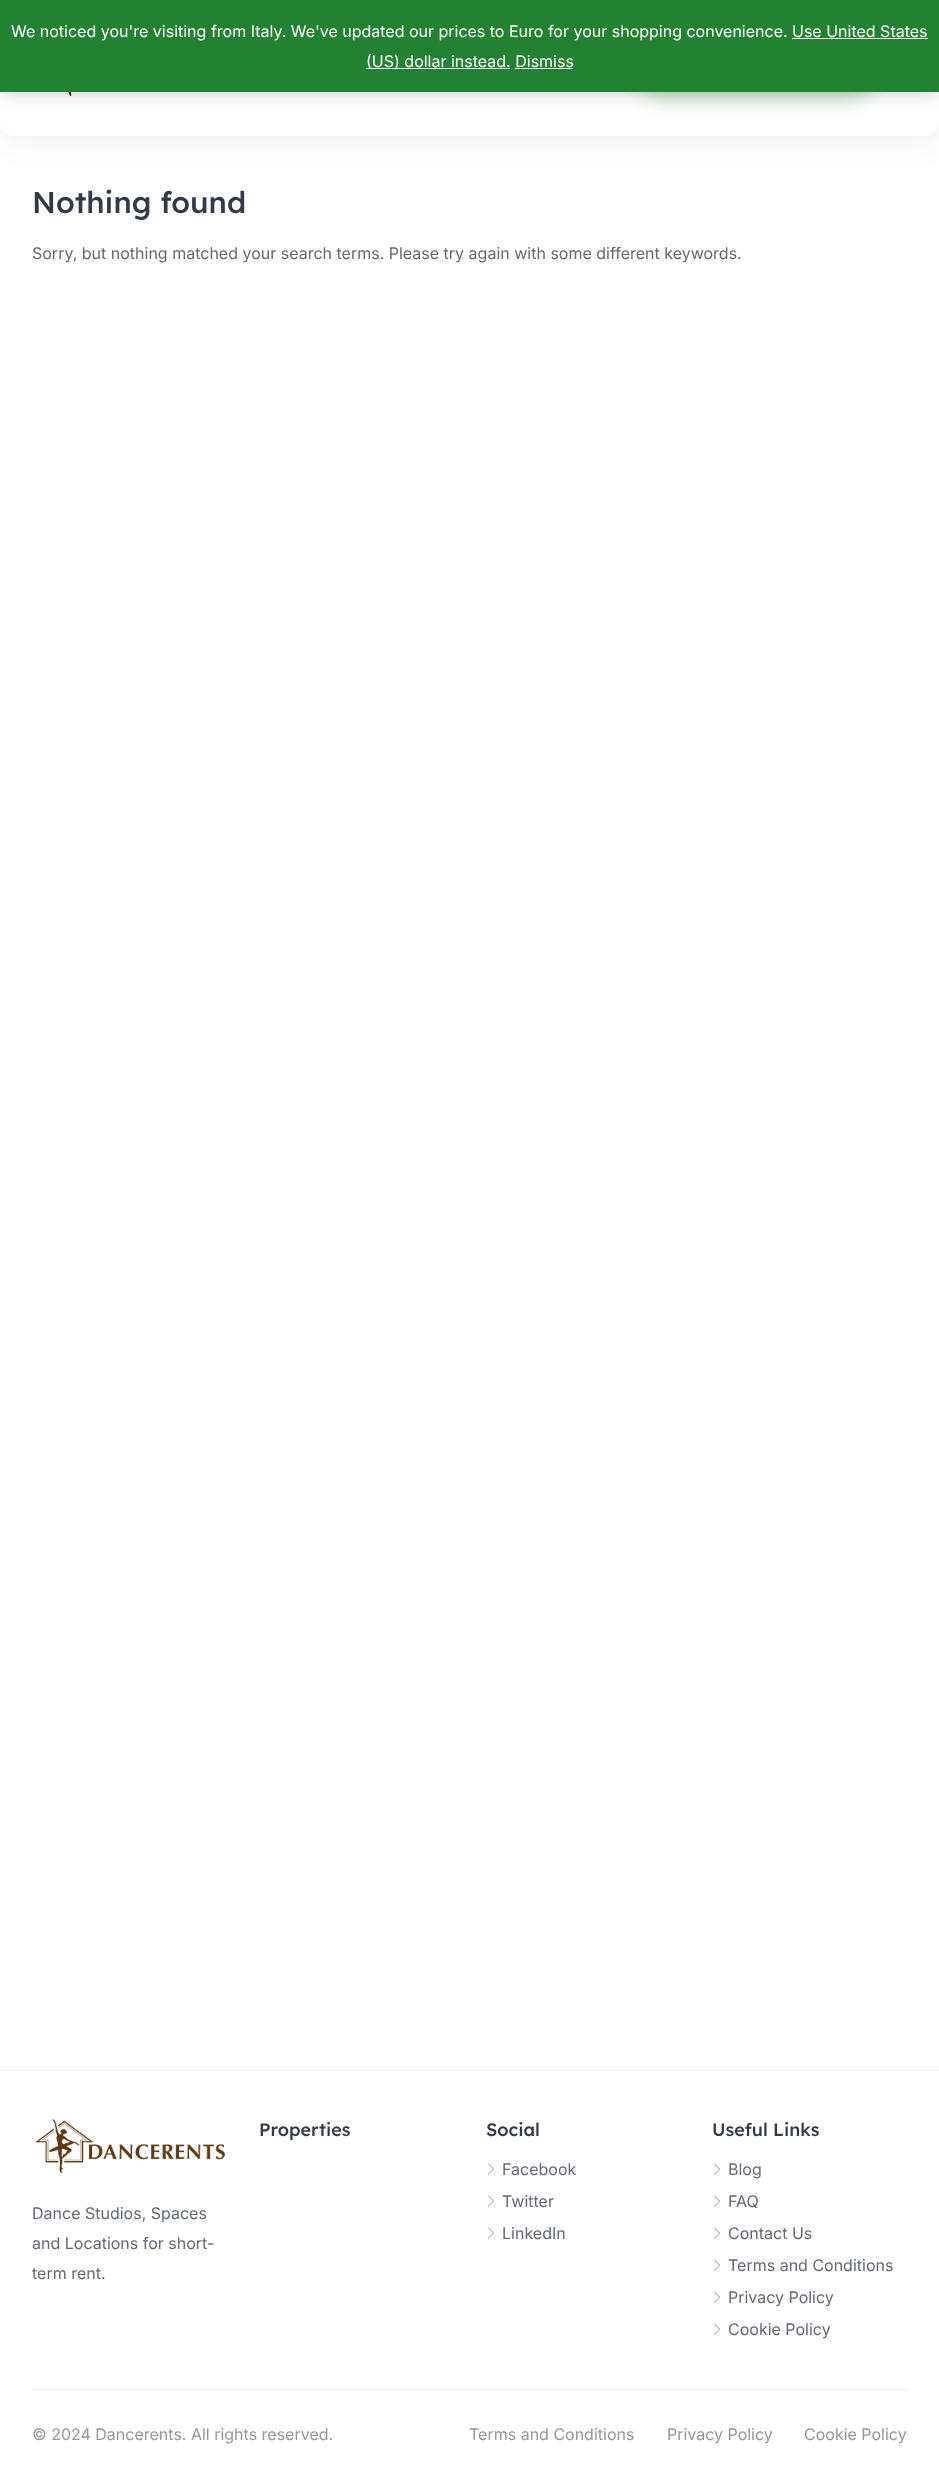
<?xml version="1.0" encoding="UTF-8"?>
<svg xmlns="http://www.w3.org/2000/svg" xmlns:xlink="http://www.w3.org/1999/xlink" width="939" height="2478">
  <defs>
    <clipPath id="clip1"><path d="M 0 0 h 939 v 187 h -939 z m 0 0 h 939 v 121 c 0 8.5 -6.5 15 -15 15 h -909 c -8.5 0 -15 -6.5 -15 -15 z" clip-rule="evenodd" /></clipPath>
  </defs>
  <rect width="100%" height="100%" fill="#ffffff" />
  <g clip-path="url(#clip1)">
    <rect y="5" width="939" height="136" rx="15" fill="#072456" fill-opacity="0.07" filter="blur(15px)" />
  </g>
  <image x="36" y="92" width="250" height="4" xlink:href="image1.png" />
  <rect y="1" width="939" height="92" fill="#000000" fill-opacity="0.2" filter="blur(8px)" />
  <rect x="636" y="49" width="239" height="48" rx="24" fill="#238232" fill-opacity="0.35" filter="blur(10.5px)" />
  <rect width="939" height="92" fill="#238232" />
  <rect x="792" y="38" width="136" height="1" fill="#fcfbfe" />
  <rect x="366" y="68" width="144" height="1" fill="#fcfbfe" />
  <rect y="2070" width="939" height="1" fill="#eceff2" />
  <rect x="32" y="2389" width="875" height="1" fill="#eceff2" />
  <image x="35" y="2119" width="190" height="54" xlink:href="image2.png" />
  <image x="488" y="2163" width="6" height="12" xlink:href="image3.png" />
  <image x="488" y="2195" width="6" height="12" xlink:href="image3.png" />
  <image x="488" y="2227" width="6" height="12" xlink:href="image3.png" />
  <image x="714" y="2163" width="6" height="12" xlink:href="image3.png" />
  <image x="714" y="2195" width="6" height="12" xlink:href="image3.png" />
  <image x="714" y="2227" width="6" height="12" xlink:href="image3.png" />
  <image x="714" y="2259" width="6" height="12" xlink:href="image3.png" />
  <image x="714" y="2291" width="6" height="12" xlink:href="image3.png" />
  <image x="714" y="2323" width="6" height="12" xlink:href="image3.png" />
  <text x="11" y="37" style="font-family: Inter; font-size: 16px; fill: #ffffff">We noticed you're visiting from Italy. We've updated our prices to Euro for your shopping convenience.</text>
  <text x="792" y="37" style="font-family: Inter; font-size: 16px; fill: #ffffff">Use United States</text>
  <text x="366" y="67" style="font-family: Inter; font-size: 16px; fill: #ffffff">(US) dollar instead. Dismiss</text>
  <rect x="515" y="68" width="58" height="1" fill="#fcfbfe" />
  <text x="32" y="213" style="font-family: Lexend; font-size: 30px; font-weight: 500; fill: #333a47">Nothing found</text>
  <text x="32" y="259" style="font-family: Inter; font-size: 16px; fill: #636873">Sorry, but nothing matched your search terms. Please try again with some different keywords.</text>
  <text x="32" y="2219" style="font-family: Inter; font-size: 16px; fill: #636873">Dance Studios, Spaces</text>
  <text x="32" y="2249" style="font-family: Inter; font-size: 16px; fill: #636873">and Locations for short-</text>
  <text x="32" y="2279" style="font-family: Inter; font-size: 16px; fill: #636873">term rent.</text>
  <text x="259" y="2136" style="font-family: Lexend; font-size: 18px; font-weight: 500; fill: #333a47">Properties</text>
  <text x="486" y="2136" style="font-family: Lexend; font-size: 18px; font-weight: 500; fill: #333a47">Social</text>
  <text x="502" y="2175" style="font-family: Inter; font-size: 16px; fill: #636873">Facebook</text>
  <text x="502" y="2207" style="font-family: Inter; font-size: 16px; fill: #636873">Twitter</text>
  <text x="502" y="2239" style="font-family: Inter; font-size: 16px; fill: #636873">LinkedIn</text>
  <text x="712" y="2136" style="font-family: Lexend; font-size: 18px; font-weight: 500; fill: #333a47">Useful Links</text>
  <text x="728" y="2175" style="font-family: Inter; font-size: 16px; fill: #636873">Blog</text>
  <text x="728" y="2207" style="font-family: Inter; font-size: 16px; fill: #636873">FAQ</text>
  <text x="728" y="2239" style="font-family: Inter; font-size: 16px; fill: #636873">Contact Us</text>
  <text x="728" y="2271" style="font-family: Inter; font-size: 16px; fill: #636873">Terms and Conditions</text>
  <text x="728" y="2303" style="font-family: Inter; font-size: 16px; fill: #636873">Privacy Policy</text>
  <text x="728" y="2335" style="font-family: Inter; font-size: 16px; fill: #636873">Cookie Policy</text>
  <text x="32" y="2440" style="font-family: Inter; font-size: 16px; fill: #93979e">© 2024 Dancerents. All rights reserved.</text>
  <text x="469" y="2440" style="font-family: Inter; font-size: 16px; fill: #93979e">Terms and Conditions</text>
  <text x="667" y="2440" style="font-family: Inter; font-size: 16px; fill: #93979e">Privacy Policy</text>
  <text x="804" y="2440" style="font-family: Inter; font-size: 16px; fill: #93979e">Cookie Policy</text>
</svg>
